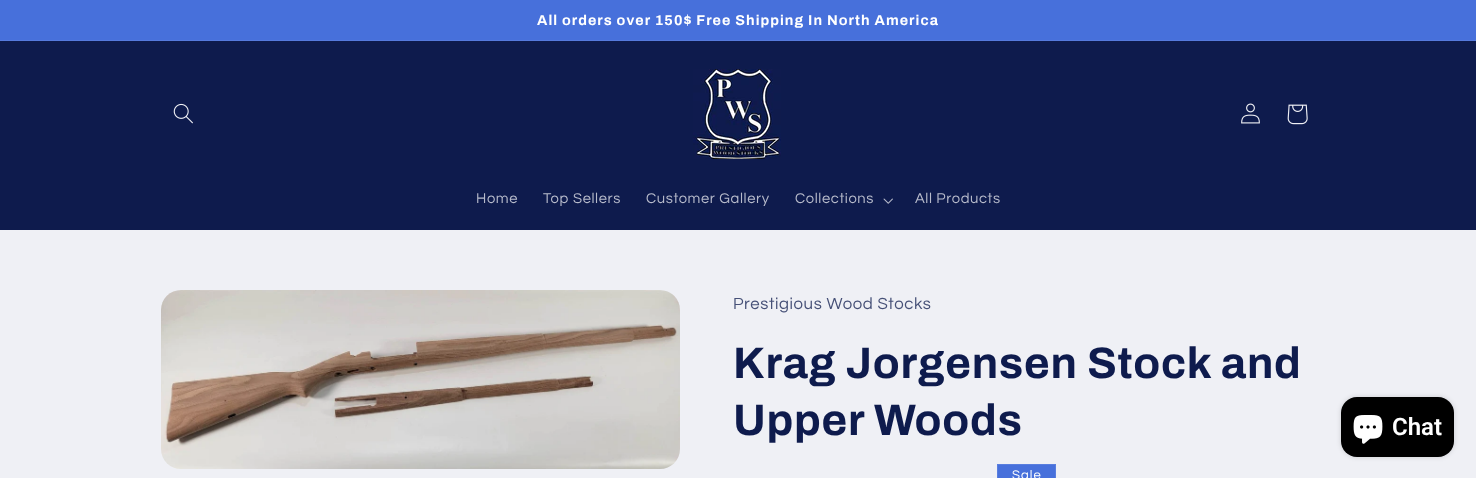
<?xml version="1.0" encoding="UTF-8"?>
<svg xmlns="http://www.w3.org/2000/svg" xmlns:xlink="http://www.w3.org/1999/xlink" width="1476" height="478">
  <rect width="100%" height="100%" fill="#eff0f5" />
  <rect width="1476" height="40" fill="#4770db" />
  <rect y="40" width="1476" height="1" fill="#567bde" />
  <rect y="41" width="1476" height="189" fill="#0e1b4d" />
  <image x="173" y="103" width="20" height="21" xlink:href="image1.png" />
  <image x="693" y="69" width="88" height="90" xlink:href="image2.png" />
  <image x="1241" y="103" width="19" height="21" xlink:href="image3.png" />
  <image x="1287" y="104" width="21" height="21" xlink:href="image4.png" />
  <image x="883" y="198" width="10" height="6" xlink:href="image5.png" />
  <image x="161" y="290" width="519" height="179" xlink:href="image6.png" />
  <rect x="997.5" y="464.5" width="58" height="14" fill="#4770db" stroke="#597edf" />
  <rect x="1341" y="397" width="113" height="60" rx="16" fill="#000000" fill-opacity="0.15" filter="blur(2.5px)" />
  <rect x="1341" y="397" width="113" height="60" rx="16" fill="#000000" />
  <image x="1353" y="415" width="30" height="29" xlink:href="image7.png" />
  <text x="537" y="25" style="font-family: Archivo; font-size: 14.3px; font-weight: bold; letter-spacing: 1.05px; fill: #ffffff">All orders over 150$ Free Shipping In North America</text>
  <text x="476" y="203" style="font-family: Questrial; font-size: 14.75px; letter-spacing: 0.6px; fill: #b7bbcb">Home</text>
  <text x="543" y="203" style="font-family: Questrial; font-size: 14.75px; letter-spacing: 0.6px; fill: #b7bbcb">Top Sellers</text>
  <text x="646" y="203" style="font-family: Questrial; font-size: 14.75px; letter-spacing: 0.6px; fill: #b7bbcb">Customer Gallery</text>
  <text x="795" y="203" style="font-family: Questrial; font-size: 14.75px; letter-spacing: 0.6px; fill: #b7bbcb">Collections</text>
  <text x="915" y="203" style="font-family: Questrial; font-size: 14.75px; letter-spacing: 0.6px; fill: #b7bbcb">All Products</text>
  <text x="733" y="309" style="font-family: Questrial; font-size: 16.75px; letter-spacing: 0.6px; fill: #465077">Prestigious Wood Stocks</text>
  <text x="733" y="378" style="font-family: Archivo; font-size: 44px; font-weight: bold; letter-spacing: 0.7px; fill: #0e1b4d">Krag Jorgensen Stock and</text>
  <text x="733" y="435" style="font-family: Archivo; font-size: 44px; font-weight: bold; letter-spacing: 0.7px; fill: #0e1b4d">Upper Woods</text>
  <text x="1012" y="479" style="font-family: Questrial; font-size: 13px; letter-spacing: 1.05px; fill: #ffffff">Sale</text>
  <text x="1392" y="435" style="font-family: Roboto; font-size: 24px; font-weight: 600; fill: #ffffff">Chat</text>
</svg>
